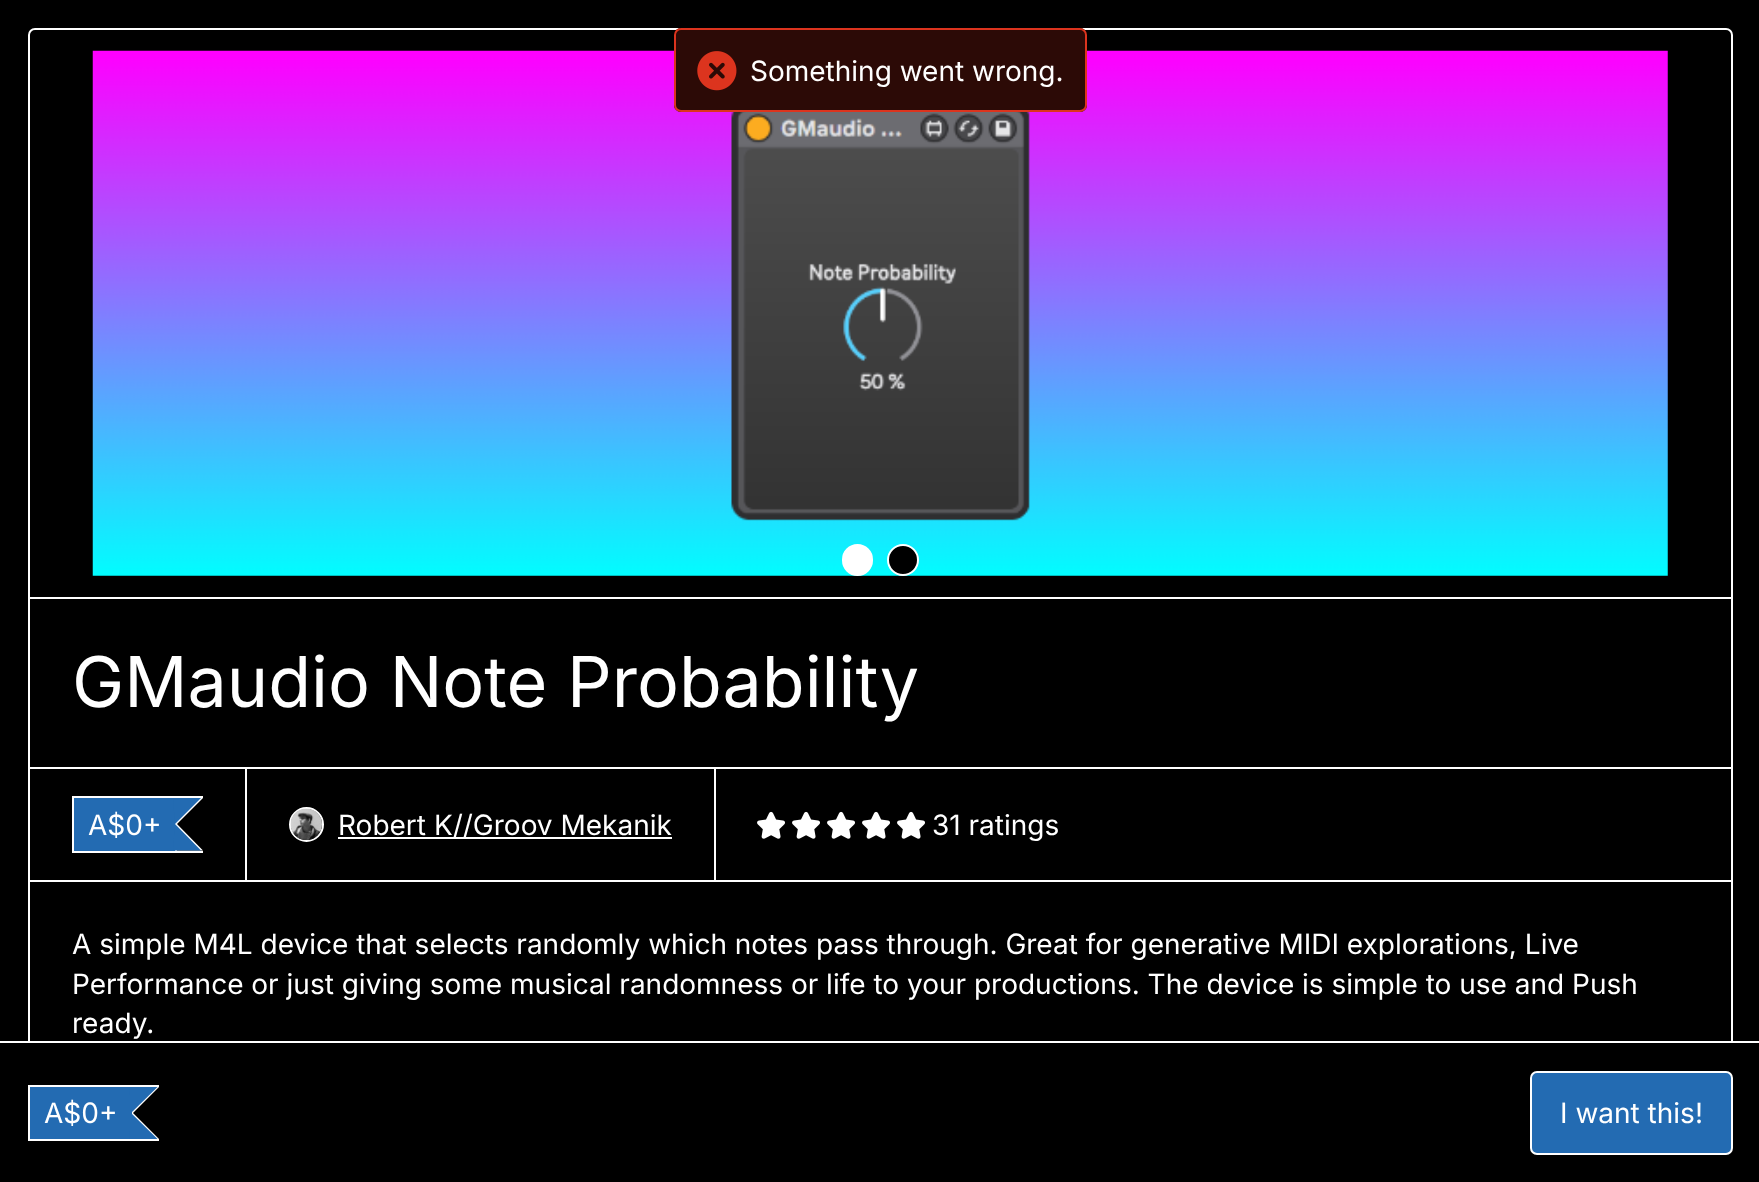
<?xml version="1.0" encoding="UTF-8"?>
<svg xmlns="http://www.w3.org/2000/svg" xmlns:xlink="http://www.w3.org/1999/xlink" width="1759" height="1182">
  <rect width="100%" height="100%" fill="#000000" />
  <rect x="29" y="29" width="1703" height="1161" rx="6" fill="none" stroke="#ffffff" stroke-width="2" />
  <image x="92" y="50" width="1576" height="526" xlink:href="image2.png" />
  <rect x="674" y="28" width="413" height="84" rx="7" fill="#000000" />
  <rect x="675" y="29" width="411" height="82" rx="6" fill="#dc341e" fill-opacity="0.2" stroke="#dc341e" stroke-width="2" />
  <image x="697" y="51" width="40" height="40" xlink:href="image1.png" />
  <rect x="30" y="597" width="1701" height="2" fill="#ffffff" />
  <rect x="843" y="545" width="29" height="30" rx="14.5" fill="#ffffff" stroke="#ffffff" stroke-width="2" />
  <circle cx="903" cy="560" r="15" fill="#000000" stroke="#ffffff" stroke-width="2" />
  <rect x="716" y="767" width="1015" height="2" fill="#ffffff" />
  <rect x="29" y="768" width="217" height="113" fill="none" stroke="#ffffff" stroke-width="2" />
  <rect x="72" y="796" width="131" height="2" fill="#ffffff" />
  <rect x="72" y="851" width="131" height="2" fill="#ffffff" />
  <rect x="72" y="796" width="2" height="56" fill="#ffffff" />
  <rect x="74" y="798" width="101" height="53" fill="#236bb2" />
  <path d="M 175 798 h 28 l -26 26 z m 28 52.5 h -28 l 2 -26.5 z" fill="#ffffff" />
  <rect x="175" y="822" width="2" height="29" fill="#ffffff" />
  <path d="M 173 798 h 28 l -26 26 z m 28 52.5 h -28 l 2 -26.5 z" fill="#236bb2" />
  <rect x="246" y="768" width="469" height="113" fill="none" stroke="#ffffff" stroke-width="2" />
  <circle cx="306.5" cy="824.5" r="16.5" fill="none" stroke="#ffffff" stroke-width="2" />
  <image x="290" y="808" width="32" height="32" xlink:href="image3.png" />
  <rect x="338" y="837" width="334" height="2" fill="#ffffff" />
  <image x="757" y="811" width="28" height="28" xlink:href="image4.png" />
  <image x="792" y="811" width="28" height="28" xlink:href="image4.png" />
  <image x="827" y="811" width="28" height="28" xlink:href="image4.png" />
  <image x="862" y="811" width="28" height="28" xlink:href="image4.png" />
  <image x="897" y="811" width="28" height="28" xlink:href="image4.png" />
  <rect x="716" y="880" width="1015" height="2" fill="#ffffff" />
  <path d="M 0 1041 v 2 h 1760 v 138 h 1 v -140 z" fill="#ffffff" />
  <rect x="28" y="1043" width="1705" height="139" fill="#000000" />
  <rect x="28" y="1085" width="131" height="2" fill="#ffffff" />
  <rect x="28" y="1139" width="131" height="2" fill="#ffffff" />
  <rect x="28" y="1085" width="2" height="56" fill="#ffffff" />
  <rect x="30" y="1087" width="100" height="52" fill="#236bb2" />
  <path d="M 131 1087 h 28 l -26 26 z m 28 52 h -28 l 2 -26 z" fill="#ffffff" />
  <rect x="132" y="1111" width="1" height="4" fill="#ffffff" />
  <path d="M 129.5 1087 h 28 l -26.5 26 z m 28 52 h -28 l 1.5 -26 z" fill="#236bb2" />
  <rect x="130" y="1096" width="2" height="34" fill="#236bb2" />
  <rect x="1531" y="1072" width="201" height="82" rx="6" fill="#236bb2" stroke="#ffffff" stroke-width="2" />
  <text x="750" y="81" style="font-family: Inter; font-size: 28px; fill: #ffffff">Something went wrong.</text>
  <text x="72" y="707" style="font-family: Inter; font-size: 70px; fill: #ffffff">GMaudio Note Probability</text>
  <text x="88" y="835" style="font-family: Inter; font-size: 28px; fill: #ffffff">A$0+</text>
  <text x="338" y="835" style="font-family: Inter; font-size: 28px; fill: #ffffff">Robert K//Groov Mekanik</text>
  <text x="932" y="835" style="font-family: Inter; font-size: 28px; fill: #ffffff">31 ratings</text>
  <text x="72" y="954" style="font-family: Inter; font-size: 28px; fill: #ffffff">A simple M4L device that selects randomly which notes pass through. Great for generative MIDI explorations, Live</text>
  <text x="72" y="994" style="font-family: Inter; font-size: 28px; fill: #ffffff">Performance or just giving some musical randomness or life to your productions. The device is simple to use and Push</text>
  <text x="72" y="1033" style="font-family: Inter; font-size: 28px; fill: #ffffff">ready.</text>
  <text x="44" y="1123" style="font-family: Inter; font-size: 28px; fill: #ffffff">A$0+</text>
  <text x="1560" y="1123" style="font-family: Inter; font-size: 28px; fill: #ffffff">I want this!</text>
</svg>
